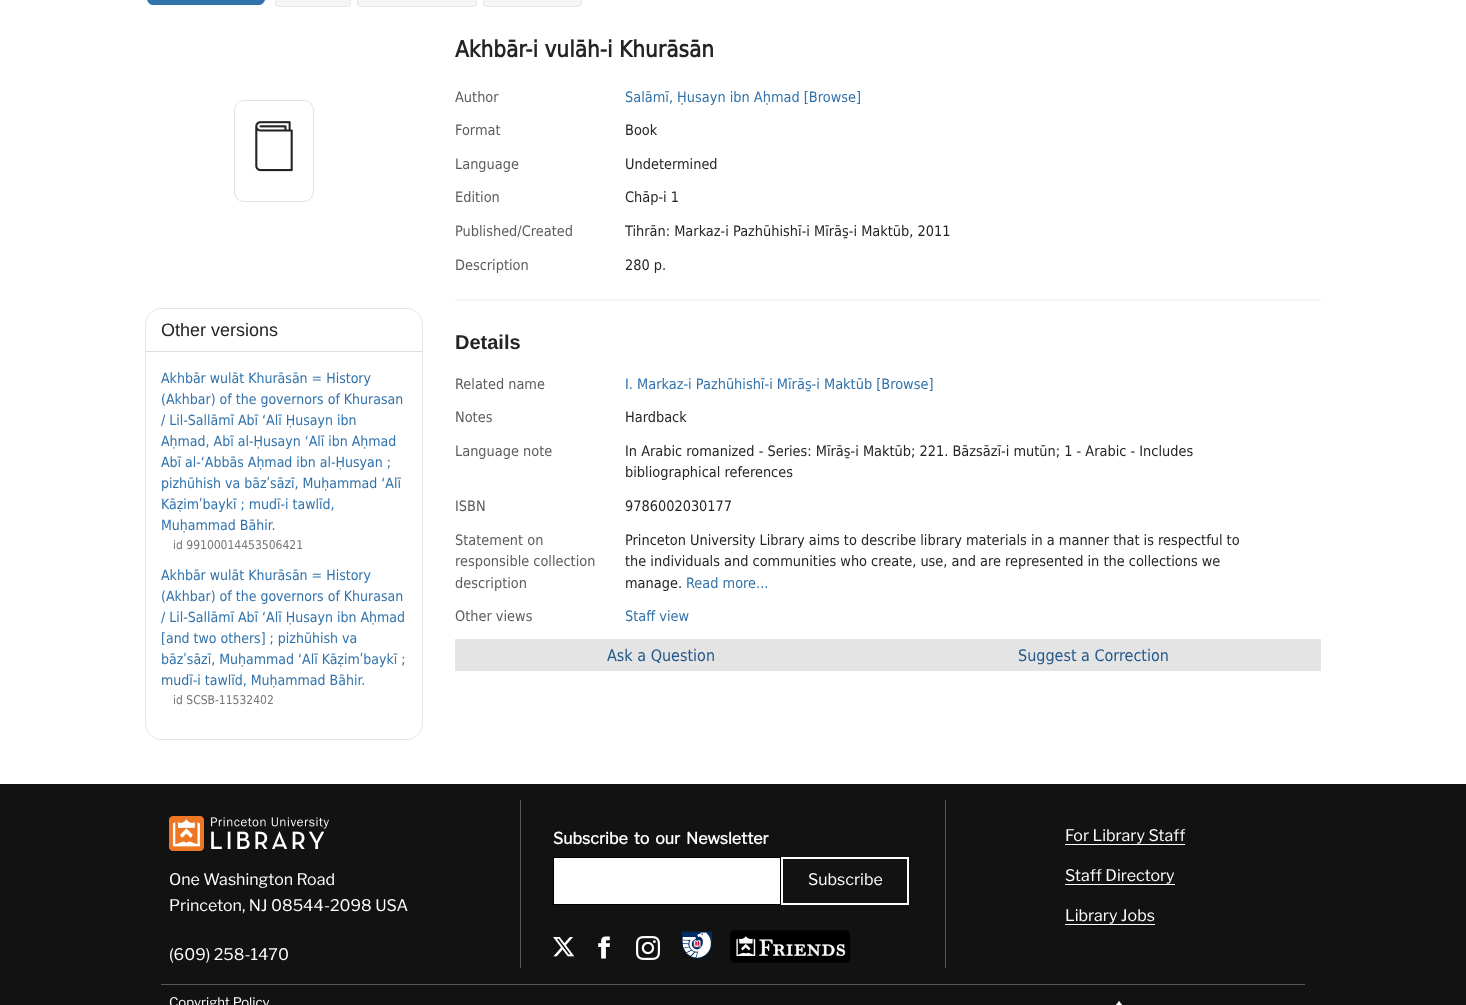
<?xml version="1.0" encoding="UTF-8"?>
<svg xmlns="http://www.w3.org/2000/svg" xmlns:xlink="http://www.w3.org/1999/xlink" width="1466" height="1005">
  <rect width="100%" height="100%" fill="#ffffff" />
  <rect x="147.5" y="-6.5" width="117" height="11" rx="5.5" fill="#3072ab" stroke="#3072ab" />
  <rect x="275.5" y="-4.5" width="75" height="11" rx="3.5" fill="#f5f5f5" stroke="#e8e6df" />
  <rect x="357.5" y="-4.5" width="119" height="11" rx="3.5" fill="#f5f5f5" stroke="#e8e6df" />
  <rect x="483.5" y="-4.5" width="98" height="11" rx="3.5" fill="#f5f5f5" stroke="#e8e6df" />
  <rect x="234.5" y="100.5" width="79" height="101" rx="9.5" fill="none" stroke="#e1e1e1" />
  <image x="255" y="121" width="38" height="51" xlink:href="image1.png" />
  <rect x="455" y="299" width="866" height="2" fill="#f5f5f5" />
  <rect x="455" y="639" width="866" height="32" fill="#e4e4e4" />
  <rect x="145.5" y="308.5" width="277" height="431" rx="15.5" fill="none" stroke="#e8e6df" />
  <rect x="146" y="351" width="276" height="1" fill="#dddddd" />
  <rect y="784" width="1466" height="221" fill="#121212" />
  <rect x="945" y="800" width="1" height="168" fill="#595959" />
  <rect x="553.5" y="857.5" width="227" height="47" fill="#ffffff" stroke="#000000" />
  <rect x="782" y="858" width="126" height="46" fill="none" stroke="#ffffff" stroke-width="2" />
  <image x="553" y="937" width="22" height="20" xlink:href="image2.png" />
  <image x="598" y="936" width="12" height="23" xlink:href="image3.png" />
  <image x="636" y="936" width="24" height="24" xlink:href="image4.png" />
  <image x="682" y="931" width="30" height="28" xlink:href="image5.png" />
  <image x="730" y="930" width="120" height="33" xlink:href="image6.png" />
  <rect x="1065" y="844" width="120" height="1" fill="#ffffff" />
  <rect x="1065" y="884" width="110" height="1" fill="#ffffff" />
  <rect x="1065" y="924" width="90" height="1" fill="#ffffff" />
  <rect x="520" y="800" width="1" height="168" fill="#595959" />
  <image x="169" y="816" width="160" height="35" xlink:href="image7.png" />
  <rect x="161" y="984" width="1144" height="1" fill="#595959" />
  <image x="1115" y="1000" width="8" height="5" xlink:href="image8.png" />
  <text x="455" y="57" style="font-family: DejaVu Sans; font-size: 22.4px; font-weight: bold; fill: #242424">Akhbār-i vulāh-i Khurāsān</text>
  <text x="455" y="102" style="font-family: DejaVu Sans; font-size: 14.4px; fill: #595c5f">Author</text>
  <text x="625" y="102" style="font-family: DejaVu Sans; font-size: 14.4px; fill: #3072ab">Salāmī, Ḥusayn ibn Aḥmad [Browse]</text>
  <text x="455" y="135" style="font-family: DejaVu Sans; font-size: 14.4px; fill: #595c5f">Format</text>
  <text x="625" y="135" style="font-family: DejaVu Sans; font-size: 14.4px; fill: #242424">Book</text>
  <text x="455" y="169" style="font-family: DejaVu Sans; font-size: 14.4px; fill: #595c5f">Language</text>
  <text x="625" y="169" style="font-family: DejaVu Sans; font-size: 14.4px; fill: #242424">Undetermined</text>
  <text x="455" y="202" style="font-family: DejaVu Sans; font-size: 14.4px; fill: #595c5f">Εdition</text>
  <text x="625" y="202" style="font-family: DejaVu Sans; font-size: 14.4px; fill: #242424">Chāp-i 1</text>
  <text x="455" y="236" style="font-family: DejaVu Sans; font-size: 14.4px; fill: #595c5f">Published/Created</text>
  <text x="625" y="236" style="font-family: DejaVu Sans; font-size: 14.4px; fill: #242424">Tihrān: Markaz-i Pazhūhishī-i Mīrās̱-i Maktūb, 2011</text>
  <text x="455" y="270" style="font-family: DejaVu Sans; font-size: 14.4px; fill: #595c5f">Description</text>
  <text x="625" y="270" style="font-family: DejaVu Sans; font-size: 14.4px; fill: #242424">280 p.</text>
  <text x="455" y="349" style="font-family: Liberation Sans; font-size: 20px; font-weight: bold; fill: #242424">Details</text>
  <text x="455" y="389" style="font-family: DejaVu Sans; font-size: 14.4px; fill: #595c5f">Related name</text>
  <text x="625" y="389" style="font-family: DejaVu Sans; font-size: 14.4px; fill: #3072ab">I. Markaz-i Pazhūhishī-i Mīrās̱-i Maktūb [Browse]</text>
  <text x="455" y="422" style="font-family: DejaVu Sans; font-size: 14.4px; fill: #595c5f">Notes</text>
  <text x="625" y="422" style="font-family: DejaVu Sans; font-size: 14.4px; fill: #242424">Hardback</text>
  <text x="455" y="456" style="font-family: DejaVu Sans; font-size: 14.4px; fill: #595c5f">Language note</text>
  <text x="625" y="456" style="font-family: DejaVu Sans; font-size: 14.4px; fill: #242424">In Arabic romanized - Series: Mīrās̱-i Maktūb; 221. Bāzsāzī-i mutūn; 1 - Arabic - Includes</text>
  <text x="625" y="477" style="font-family: DejaVu Sans; font-size: 14.4px; fill: #242424">bibliographical references</text>
  <text x="455" y="511" style="font-family: DejaVu Sans; font-size: 14.4px; fill: #595c5f">ISBN</text>
  <text x="625" y="511" style="font-family: DejaVu Sans; font-size: 14.4px; fill: #242424">9786002030177</text>
  <text x="455" y="545" style="font-family: DejaVu Sans; font-size: 14.4px; fill: #595c5f">Statement on</text>
  <text x="455" y="566" style="font-family: DejaVu Sans; font-size: 14.4px; fill: #595c5f">responsible collection</text>
  <text x="455" y="588" style="font-family: DejaVu Sans; font-size: 14.4px; fill: #595c5f">description</text>
  <text x="625" y="545" style="font-family: DejaVu Sans; font-size: 14.4px; fill: #242424">Princeton University Library aims to describe library materials in a manner that is respectful to</text>
  <text x="625" y="566" style="font-family: DejaVu Sans; font-size: 14.4px; fill: #242424">the individuals and communities who create, use, and are represented in the collections we</text>
  <text x="625" y="588" style="font-family: DejaVu Sans; font-size: 14.4px; fill: #242424">manage.</text>
  <text x="686" y="588" style="font-family: DejaVu Sans; font-size: 14.4px; fill: #3072ab">Read more...</text>
  <text x="455" y="621" style="font-family: DejaVu Sans; font-size: 14.4px; fill: #595c5f">Other views</text>
  <text x="625" y="621" style="font-family: DejaVu Sans; font-size: 14.4px; fill: #3072ab">Staff view</text>
  <text x="607" y="661" style="font-family: DejaVu Sans; font-size: 16px; fill: #23578b">Ask a Question</text>
  <text x="1018" y="661" style="font-family: DejaVu Sans; font-size: 16px; fill: #23578b">Suggest a Correction</text>
  <text x="161" y="336" style="font-family: Liberation Sans; font-size: 18px; fill: #242424">Other versions</text>
  <text x="161" y="383" style="font-family: DejaVu Sans; font-size: 14px; fill: #3072ab">Akhbār wulāt Khurāsān = History</text>
  <text x="161" y="404" style="font-family: DejaVu Sans; font-size: 14px; fill: #3072ab">(Akhbar) of the governors of Khurasan</text>
  <text x="161" y="425" style="font-family: DejaVu Sans; font-size: 14px; fill: #3072ab">/ Lil-Sallāmī Abī ʻAlī Ḥusayn ibn</text>
  <text x="161" y="446" style="font-family: DejaVu Sans; font-size: 14px; fill: #3072ab">Aḥmad, Abī al-Ḥusayn ʻAlī ibn Aḥmad</text>
  <text x="161" y="467" style="font-family: DejaVu Sans; font-size: 14px; fill: #3072ab">Abī al-ʻAbbās Aḥmad ibn al-Ḥusyan ;</text>
  <text x="161" y="488" style="font-family: DejaVu Sans; font-size: 14px; fill: #3072ab">pizhūhish va bāzʹsāzī, Muḥammad ʻAlī</text>
  <text x="161" y="509" style="font-family: DejaVu Sans; font-size: 14px; fill: #3072ab">Kāẓimʹbaykī ; mudī-i tawlīd,</text>
  <text x="161" y="530" style="font-family: DejaVu Sans; font-size: 14px; fill: #3072ab">Muḥammad Bāhir.</text>
  <text x="173" y="549" style="font-family: DejaVu Sans; font-size: 12px; fill: #757575">id 99100014453506421</text>
  <text x="161" y="580" style="font-family: DejaVu Sans; font-size: 14px; fill: #3072ab">Akhbār wulāt Khurāsān = History</text>
  <text x="161" y="601" style="font-family: DejaVu Sans; font-size: 14px; fill: #3072ab">(Akhbar) of the governors of Khurasan</text>
  <text x="161" y="622" style="font-family: DejaVu Sans; font-size: 14px; fill: #3072ab">/ Lil-Sallāmī Abī ʻAlī Ḥusayn ibn Aḥmad</text>
  <text x="161" y="643" style="font-family: DejaVu Sans; font-size: 14px; fill: #3072ab">[and two others] ; pizhūhish va</text>
  <text x="161" y="664" style="font-family: DejaVu Sans; font-size: 14px; fill: #3072ab">bāzʹsāzī, Muḥammad ʻAlī Kāẓimʹbaykī ;</text>
  <text x="161" y="685" style="font-family: DejaVu Sans; font-size: 14px; fill: #3072ab">mudī-i tawlīd, Muḥammad Bāhir.</text>
  <text x="173" y="704" style="font-family: DejaVu Sans; font-size: 12px; fill: #757575">id SCSB-11532402</text>
  <text x="553" y="844" word-spacing="2.5" style="font-family: Libre Franklin; font-size: 16px; font-weight: bold; fill: #ffffff">Subscribe to our Newsletter</text>
  <text x="808" y="885" style="font-family: Libre Franklin; font-size: 16px; fill: #ffffff">Subscribe</text>
  <text x="1065" y="841" style="font-family: Libre Franklin; font-size: 16px; fill: #ffffff">For Library Staff</text>
  <text x="1065" y="881" style="font-family: Libre Franklin; font-size: 16px; fill: #ffffff">Staff Directory</text>
  <text x="1065" y="921" style="font-family: Libre Franklin; font-size: 16px; fill: #ffffff">Library Jobs</text>
  <text x="169" y="885" style="font-family: Libre Franklin; font-size: 16px; fill: #ffffff">One Washington Road</text>
  <text x="169" y="911" style="font-family: Libre Franklin; font-size: 16px; fill: #ffffff">Princeton, NJ 08544-2098 USA</text>
  <text x="169" y="960" style="font-family: Libre Franklin; font-size: 16px; fill: #ffffff">(609) 258-1470</text>
  <text x="169" y="1007" style="font-family: Libre Franklin; font-size: 13.25px; fill: #ffffff">Copyright Policy</text>
</svg>
